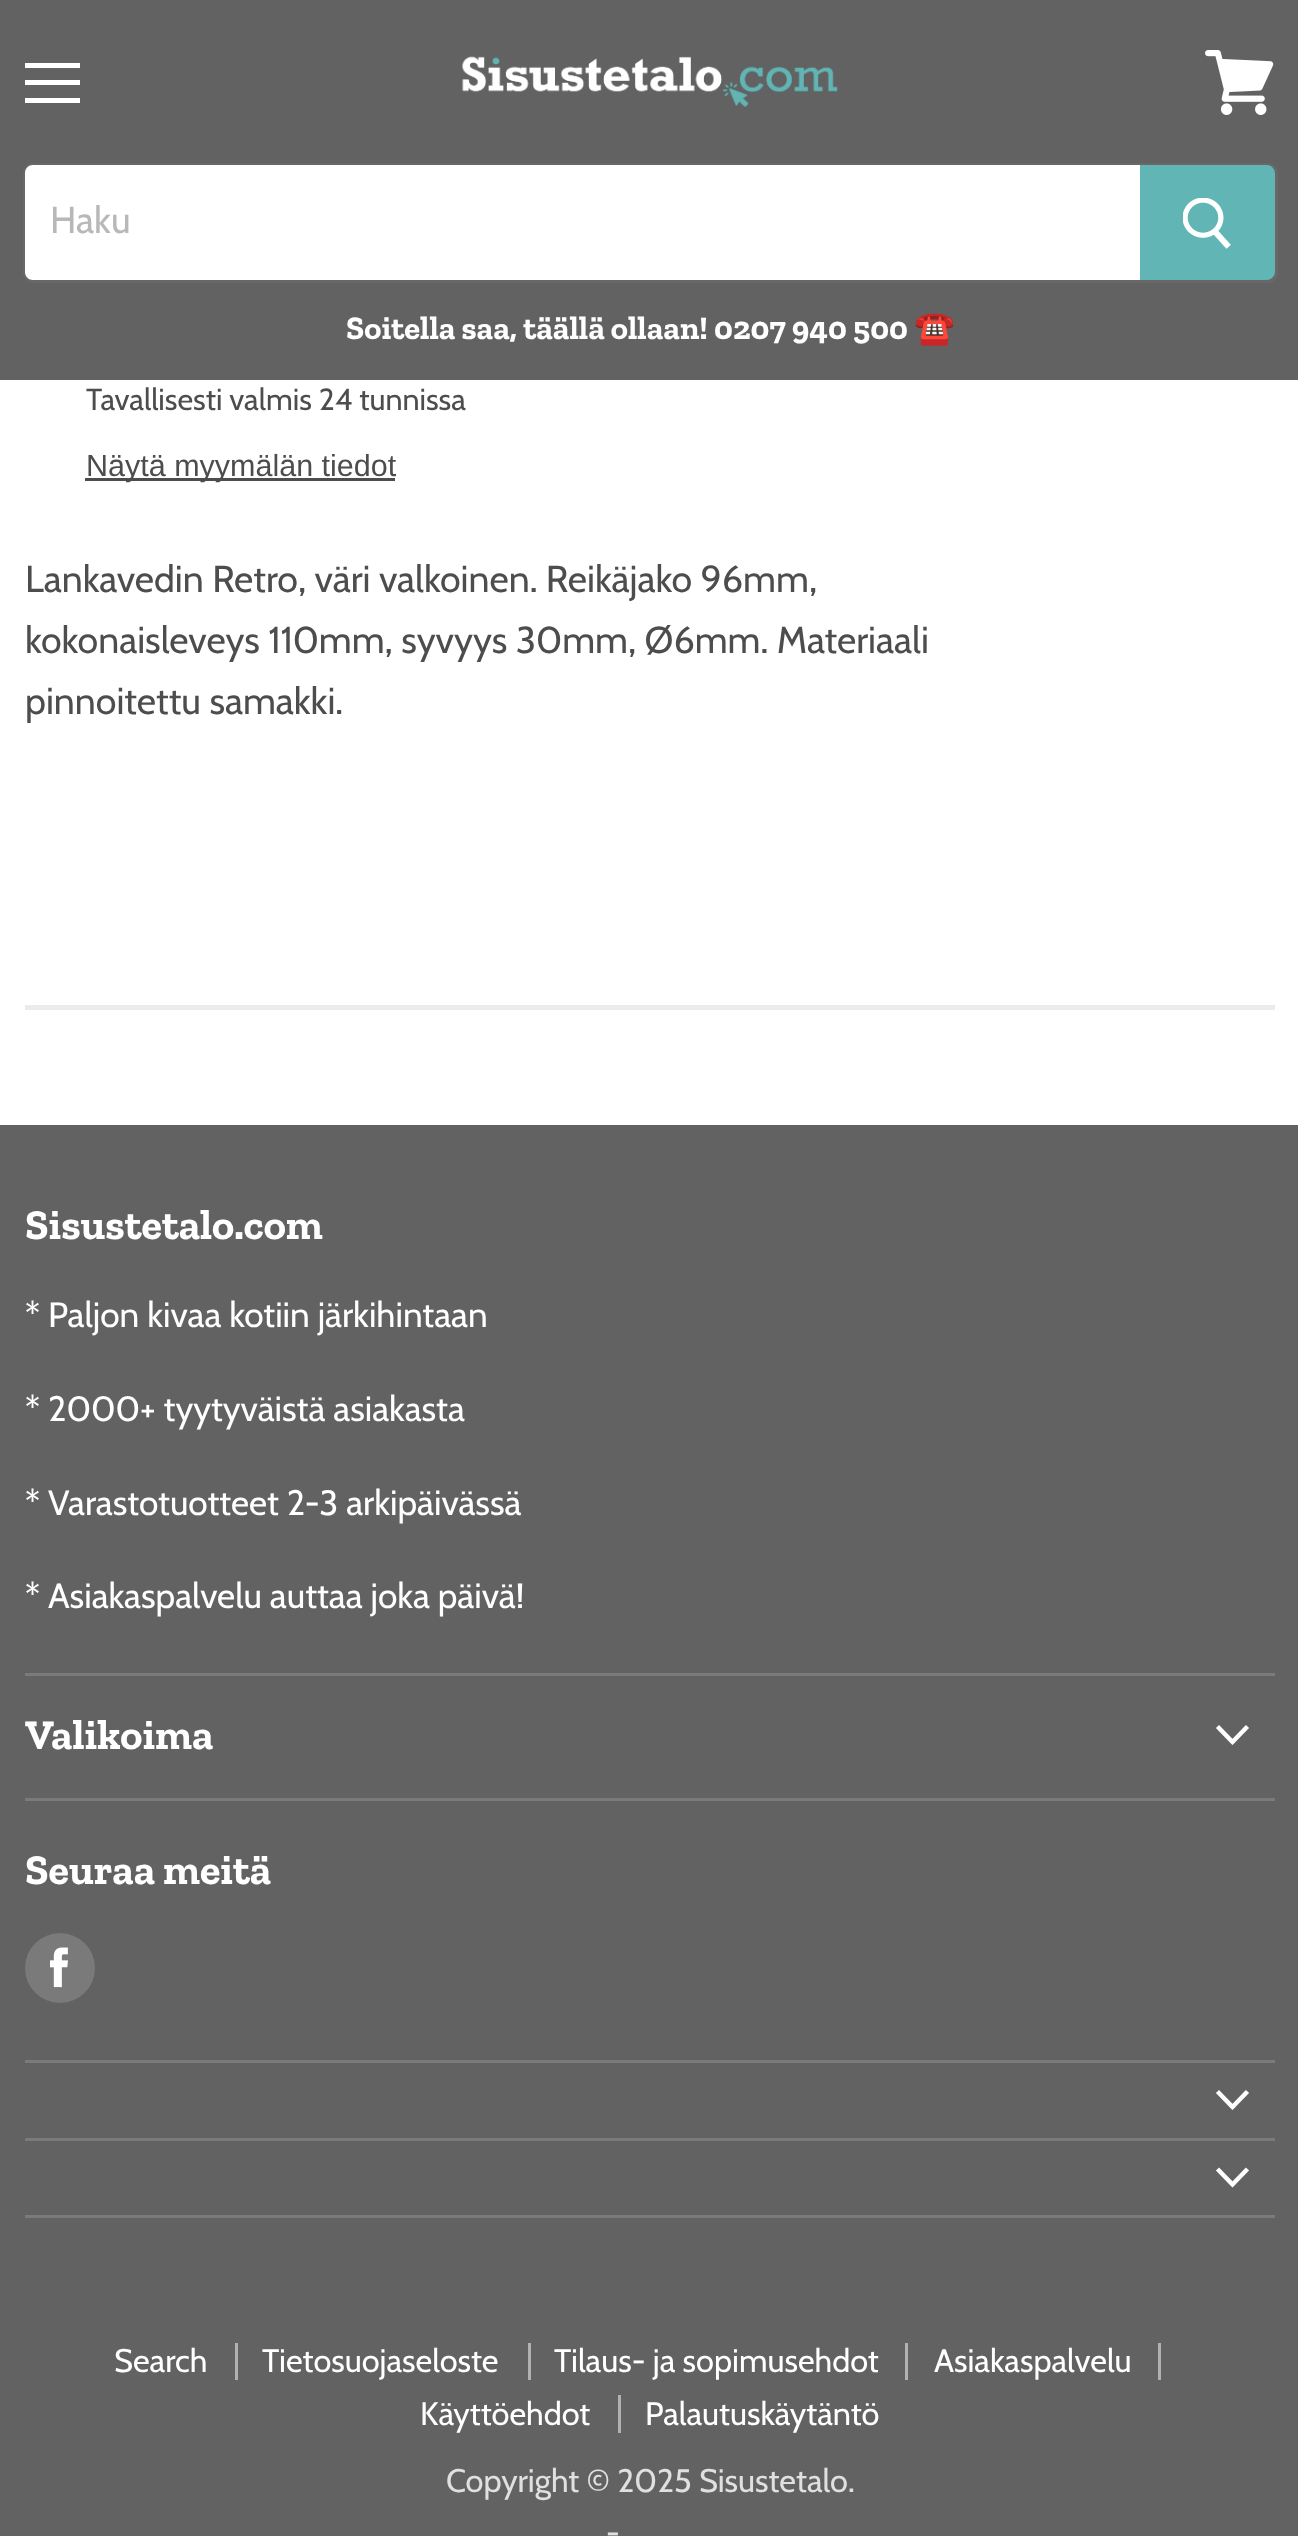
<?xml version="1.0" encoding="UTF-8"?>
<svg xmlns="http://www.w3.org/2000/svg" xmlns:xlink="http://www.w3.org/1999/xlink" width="1298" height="2536">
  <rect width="100%" height="100%" fill="#ffffff" />
  <rect width="1298" height="380" fill="#626262" />
  <rect x="25" y="63" width="55" height="5" fill="#ffffff" />
  <rect x="25" y="80" width="55" height="5" fill="#ffffff" />
  <rect x="25" y="98" width="55" height="5" fill="#ffffff" />
  <image x="1205" y="50" width="69" height="65" xlink:href="image1.png" />
  <image x="462" y="56" width="376" height="52" xlink:href="image2.png" />
  <rect x="24.5" y="164.5" width="1252" height="117" rx="8.5" fill="none" stroke="#808080" stroke-opacity="0.2" stroke-width="3" />
  <path d="M 33 165 h 1107 v 115 h -1107 c -4.5 0 -8 -3.5 -8 -8 v -99 c 0 -4.5 3.5 -8 8 -8 z" fill="#ffffff" />
  <path d="M 1141.5 166.5 h 125.5 c 3.5 0 6.5 3 6.5 6.5 v 99 c 0 3.5 -3 6.5 -6.5 6.5 h -125.5 z" fill="#62b5b5" stroke="#62b5b5" stroke-width="3" />
  <image x="1183" y="198" width="48" height="51" xlink:href="image3.png" />
  <rect x="85" y="478" width="310" height="3" fill="#4d4d4d" />
  <rect x="25" y="1005" width="1250" height="5" fill="#ebebeb" />
  <rect y="1125" width="1298" height="1411" fill="#626262" />
  <rect x="25" y="1673" width="1250" height="3" fill="#7a7a7a" />
  <rect x="25" y="1798" width="1250" height="3" fill="#7a7a7a" />
  <path d="M 1232.5 1742 l 13.5 -14 m -13.5 14 l -13.5 -14" fill="none" stroke="#ffffff" stroke-width="4.4" stroke-linecap="square" />
  <rect x="25" y="2060" width="1250" height="3" fill="#7a7a7a" />
  <circle cx="60" cy="1968" r="35" fill="#7a7a7a" />
  <image x="50" y="1947" width="18" height="41" xlink:href="image4.png" />
  <rect x="25" y="2138" width="1250" height="3" fill="#7a7a7a" />
  <path d="M 1232.5 2107 l 13.5 -14 m -13.5 14 l -13.5 -14" fill="none" stroke="#ffffff" stroke-width="4.4" stroke-linecap="square" />
  <rect x="25" y="2215" width="1250" height="3" fill="#7a7a7a" />
  <path d="M 1232.5 2184.5 l 13.5 -14 m -13.5 14 l -13.5 -14" fill="none" stroke="#ffffff" stroke-width="4.4" stroke-linecap="square" />
  <rect x="235" y="2343" width="3" height="37" fill="#b1b1b1" />
  <rect x="528" y="2343" width="3" height="37" fill="#b1b1b1" />
  <rect x="905" y="2343" width="3" height="37" fill="#b1b1b1" />
  <rect x="1158" y="2343" width="3" height="37" fill="#b1b1b1" />
  <rect x="618" y="2395" width="3" height="38" fill="#b1b1b1" />
  <text x="50" y="233" style="font-family: Cabin; font-size: 37.5px; fill: #b8b8b8">Haku</text>
  <text x="346" y="339" style="font-family: Zilla Slab; font-size: 32.8px; font-weight: bold; fill: #ffffff">Soitella saa, täällä ollaan! 0207 940 500</text>
  <text x="914" y="339" style="font-family: Noto Color Emoji; font-size: 32.8px; font-weight: bold; fill: #ffffff">☎️</text>
  <text x="86" y="410" style="font-family: Cabin; font-size: 30.5px; fill: #4d4d4d">Tavallisesti valmis 24 tunnissa</text>
  <text x="86" y="476" style="font-family: Liberation Sans; font-size: 30.5px; fill: #4d4d4d">Näytä myymälän tiedot</text>
  <text x="25" y="592" style="font-family: Cabin; font-size: 37.5px; fill: #4d4d4d">Lankavedin Retro, väri valkoinen. Reikäjako 96mm,</text>
  <text x="25" y="653" style="font-family: Cabin; font-size: 37.5px; fill: #4d4d4d">kokonaisleveys 110mm, syvyys 30mm, Ø6mm. Materiaali</text>
  <text x="25" y="714" style="font-family: Cabin; font-size: 37.5px; fill: #4d4d4d">pinnoitettu samakki.</text>
  <text x="25" y="1239" style="font-family: Zilla Slab; font-size: 42.25px; font-weight: bold; fill: #ffffff">Sisustetalo.com</text>
  <text x="25" y="1327" style="font-family: Cabin; font-size: 35.2px; fill: #ffffff">* Paljon kivaa kotiin järkihintaan</text>
  <text x="25" y="1421" style="font-family: Cabin; font-size: 35.2px; fill: #ffffff">* 2000+ tyytyväistä asiakasta</text>
  <text x="25" y="1515" style="font-family: Cabin; font-size: 35.2px; fill: #ffffff">* Varastotuotteet 2-3 arkipäivässä</text>
  <text x="25" y="1608" style="font-family: Cabin; font-size: 35.2px; fill: #ffffff">* Asiakaspalvelu auttaa joka päivä!</text>
  <text x="25" y="1749" style="font-family: Zilla Slab; font-size: 42.25px; font-weight: bold; fill: #ffffff">Valikoima</text>
  <text x="25" y="1884" style="font-family: Zilla Slab; font-size: 42.25px; font-weight: bold; fill: #ffffff">Seuraa meitä</text>
  <text x="114" y="2372" style="font-family: Cabin; font-size: 32.5px; fill: #ffffff">Search</text>
  <text x="262" y="2372" style="font-family: Cabin; font-size: 32.5px; fill: #ffffff">Tietosuojaseloste</text>
  <text x="554" y="2372" style="font-family: Cabin; font-size: 32.5px; fill: #ffffff">Tilaus- ja sopimusehdot</text>
  <text x="934" y="2372" style="font-family: Cabin; font-size: 32.5px; fill: #ffffff">Asiakaspalvelu</text>
  <text x="420" y="2425" style="font-family: Cabin; font-size: 32.5px; fill: #ffffff">Käyttöehdot</text>
  <text x="645" y="2425" style="font-family: Cabin; font-size: 32.5px; fill: #ffffff">Palautuskäytäntö</text>
  <text x="446" y="2492" style="font-family: Cabin; font-size: 32.5px; fill: #e0e0e0">Copyright © 2025 Sisustetalo.</text>
  <text x="606" y="2544" style="font-family: Cabin; font-size: 32.5px; fill: #e0e0e0">-</text>
</svg>
